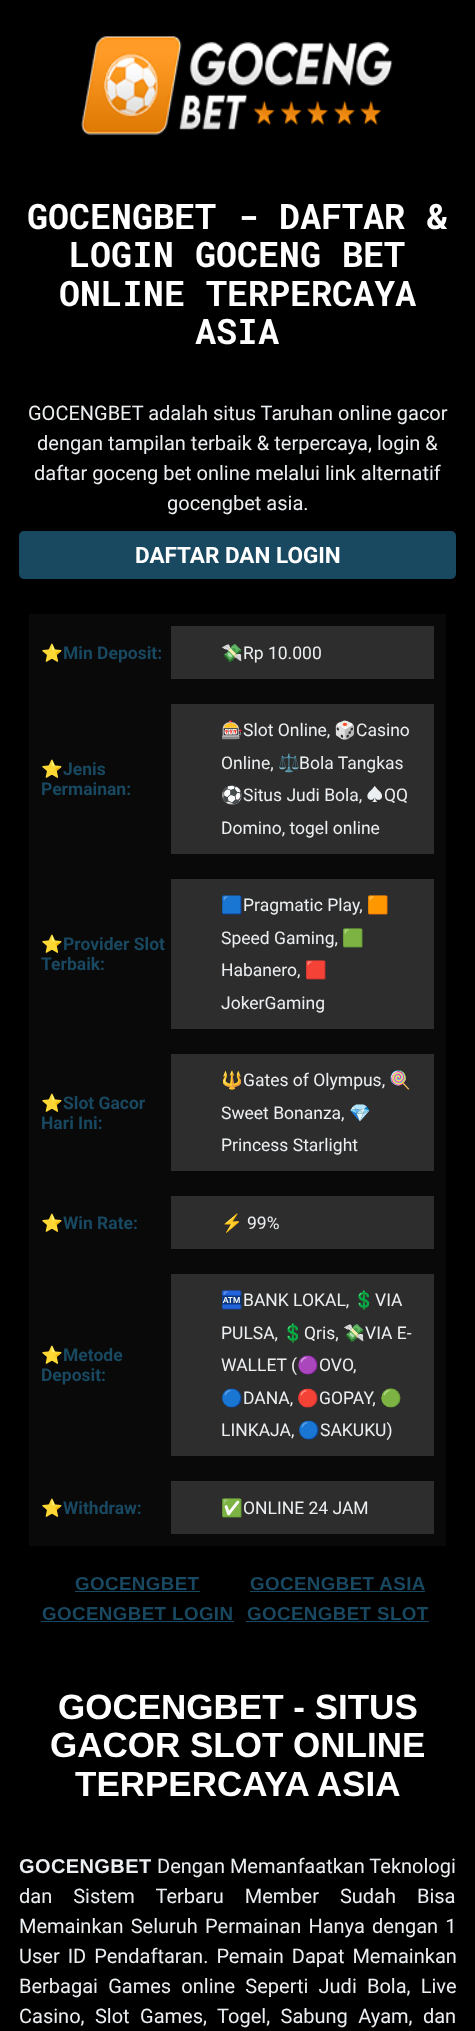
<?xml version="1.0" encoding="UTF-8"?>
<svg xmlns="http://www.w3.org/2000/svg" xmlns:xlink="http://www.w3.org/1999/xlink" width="475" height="2031">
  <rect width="100%" height="100%" fill="#000000" />
  <image x="81" y="36" width="312" height="100" xlink:href="image1.png" />
  <rect x="19" y="531" width="437" height="48" rx="5" fill="#194861" />
  <rect x="29" y="614" width="417" height="932" fill="#090909" />
  <rect x="171" y="626" width="263" height="53" fill="#2d2d2d" />
  <rect x="171" y="704" width="263" height="150" fill="#2d2d2d" />
  <rect x="171" y="879" width="263" height="150" fill="#2d2d2d" />
  <rect x="171" y="1054" width="263" height="117" fill="#2d2d2d" />
  <rect x="171" y="1196" width="263" height="53" fill="#2d2d2d" />
  <rect x="171" y="1274" width="263" height="182" fill="#2d2d2d" />
  <rect x="171" y="1481" width="263" height="53" fill="#2d2d2d" />
  <rect x="75" y="1591" width="125" height="1" fill="#194861" />
  <rect x="250" y="1591" width="175" height="1" fill="#194861" />
  <rect x="41" y="1621" width="193" height="1" fill="#194861" />
  <rect x="246" y="1621" width="183" height="1" fill="#194861" />
  <text x="27" y="229" style="font-family: Roboto Mono; font-size: 35px; font-weight: bold; fill: #ffffff">GOCENGBET - DAFTAR &amp;</text>
  <text x="69" y="267" style="font-family: Roboto Mono; font-size: 35px; font-weight: bold; fill: #ffffff">LOGIN GOCENG BET</text>
  <text x="59" y="306" style="font-family: Roboto Mono; font-size: 35px; font-weight: bold; fill: #ffffff">ONLINE TERPERCAYA</text>
  <text x="195" y="344" style="font-family: Roboto Mono; font-size: 35px; font-weight: bold; fill: #ffffff">ASIA</text>
  <text x="28" y="420" style="font-family: Roboto; font-size: 20px; fill: #eceff1">GOCENGBET adalah situs Taruhan online gacor</text>
  <text x="37" y="450" style="font-family: Roboto; font-size: 20px; fill: #eceff1">dengan tampilan terbaik &amp; terpercaya, login &amp;</text>
  <text x="34" y="480" style="font-family: Roboto; font-size: 20px; fill: #eceff1">daftar goceng bet online melalui link alternatif</text>
  <text x="167" y="510" style="font-family: Roboto; font-size: 20px; fill: #eceff1">gocengbet asia.</text>
  <text x="135" y="563" style="font-family: Roboto; font-size: 22.5px; font-weight: bold; fill: #ffffff">DAFTAR DAN LOGIN</text>
  <text x="41" y="659" style="font-family: Noto Color Emoji; font-size: 17.5px; font-weight: bold; fill: #194861">⭐</text>
  <text x="63" y="659" style="font-family: Roboto; font-size: 17.5px; font-weight: bold; fill: #194861">Min Deposit:</text>
  <text x="221" y="659" style="font-family: Noto Color Emoji; font-size: 17.5px; fill: #eceff1">💸</text>
  <text x="243" y="659" style="font-family: Roboto; font-size: 17.5px; fill: #eceff1">Rp 10.000</text>
  <text x="41" y="775" style="font-family: Noto Color Emoji; font-size: 17.5px; font-weight: bold; fill: #194861">⭐</text>
  <text x="63" y="775" style="font-family: Roboto; font-size: 17.5px; font-weight: bold; fill: #194861">Jenis</text>
  <text x="41" y="795" style="font-family: Roboto; font-size: 17.5px; font-weight: bold; fill: #194861">Permainan:</text>
  <text x="221" y="736" style="font-family: Noto Color Emoji; font-size: 17.5px; fill: #eceff1">🎰</text>
  <text x="243" y="736" style="font-family: Roboto; font-size: 17.5px; fill: #eceff1">Slot Online,</text>
  <text x="334" y="736" style="font-family: Noto Color Emoji; font-size: 17.5px; fill: #eceff1">🎲</text>
  <text x="356" y="736" style="font-family: Roboto; font-size: 17.5px; fill: #eceff1">Casino</text>
  <text x="221" y="769" style="font-family: Roboto; font-size: 17.5px; fill: #eceff1">Online,</text>
  <text x="278" y="769" style="font-family: Noto Color Emoji; font-size: 17.5px; fill: #eceff1">⚖️</text>
  <text x="299" y="769" style="font-family: Roboto; font-size: 17.5px; fill: #eceff1">Bola Tangkas</text>
  <text x="221" y="801" style="font-family: Noto Color Emoji; font-size: 17.5px; fill: #eceff1">⚽️</text>
  <text x="243" y="801" style="font-family: Roboto; font-size: 17.5px; fill: #eceff1">Situs Judi Bola,</text>
  <text x="366" y="801" style="font-family: Noto Sans JP; font-size: 17.5px; fill: #eceff1">♠</text>
  <text x="384" y="801" style="font-family: Roboto; font-size: 17.5px; fill: #eceff1">QQ</text>
  <text x="221" y="834" style="font-family: Roboto; font-size: 17.5px; fill: #eceff1">Domino, togel online</text>
  <text x="41" y="950" style="font-family: Noto Color Emoji; font-size: 17.5px; font-weight: bold; fill: #194861">⭐</text>
  <text x="63" y="950" style="font-family: Roboto; font-size: 17.5px; font-weight: bold; fill: #194861">Provider Slot</text>
  <text x="41" y="970" style="font-family: Roboto; font-size: 17.5px; font-weight: bold; fill: #194861">Terbaik:</text>
  <text x="221" y="911" style="font-family: Noto Color Emoji; font-size: 17.5px; fill: #eceff1">🟦</text>
  <text x="243" y="911" style="font-family: Roboto; font-size: 17.5px; fill: #eceff1">Pragmatic Play,</text>
  <text x="367" y="911" style="font-family: Noto Color Emoji; font-size: 17.5px; fill: #eceff1">🟧</text>
  <text x="221" y="944" style="font-family: Roboto; font-size: 17.5px; fill: #eceff1">Speed Gaming,</text>
  <text x="342" y="944" style="font-family: Noto Color Emoji; font-size: 17.5px; fill: #eceff1">🟩</text>
  <text x="221" y="976" style="font-family: Roboto; font-size: 17.5px; fill: #eceff1">Habanero,</text>
  <text x="305" y="976" style="font-family: Noto Color Emoji; font-size: 17.5px; fill: #eceff1">🟥</text>
  <text x="221" y="1009" style="font-family: Roboto; font-size: 17.5px; fill: #eceff1">JokerGaming</text>
  <text x="41" y="1109" style="font-family: Noto Color Emoji; font-size: 17.5px; font-weight: bold; fill: #194861">⭐</text>
  <text x="63" y="1109" style="font-family: Roboto; font-size: 17.5px; font-weight: bold; fill: #194861">Slot Gacor</text>
  <text x="41" y="1129" style="font-family: Roboto; font-size: 17.5px; font-weight: bold; fill: #194861">Hari Ini:</text>
  <text x="221" y="1086" style="font-family: Noto Color Emoji; font-size: 17.5px; fill: #eceff1">🔱</text>
  <text x="243" y="1086" style="font-family: Roboto; font-size: 17.5px; fill: #eceff1">Gates of Olympus,</text>
  <text x="389" y="1086" style="font-family: Noto Color Emoji; font-size: 17.5px; fill: #eceff1">🍭</text>
  <text x="221" y="1119" style="font-family: Roboto; font-size: 17.5px; fill: #eceff1">Sweet Bonanza,</text>
  <text x="349" y="1119" style="font-family: Noto Color Emoji; font-size: 17.5px; fill: #eceff1">💎</text>
  <text x="221" y="1151" style="font-family: Roboto; font-size: 17.5px; fill: #eceff1">Princess Starlight</text>
  <text x="41" y="1229" style="font-family: Noto Color Emoji; font-size: 17.5px; font-weight: bold; fill: #194861">⭐</text>
  <text x="63" y="1229" style="font-family: Roboto; font-size: 17.5px; font-weight: bold; fill: #194861">Win Rate:</text>
  <text x="221" y="1229" style="font-family: Noto Color Emoji; font-size: 17.5px; fill: #eceff1">⚡</text>
  <text x="247" y="1229" style="font-family: Roboto; font-size: 17.5px; fill: #eceff1">99%</text>
  <text x="41" y="1361" style="font-family: Noto Color Emoji; font-size: 17.5px; font-weight: bold; fill: #194861">⭐</text>
  <text x="63" y="1361" style="font-family: Roboto; font-size: 17.5px; font-weight: bold; fill: #194861">Metode</text>
  <text x="41" y="1381" style="font-family: Roboto; font-size: 17.5px; font-weight: bold; fill: #194861">Deposit:</text>
  <text x="221" y="1306" style="font-family: Noto Color Emoji; font-size: 17.5px; fill: #eceff1">🏧</text>
  <text x="243" y="1306" style="font-family: Roboto; font-size: 17.5px; fill: #eceff1">BANK LOKAL,</text>
  <text x="353" y="1306" style="font-family: Noto Color Emoji; font-size: 17.5px; fill: #eceff1">💲</text>
  <text x="375" y="1306" style="font-family: Roboto; font-size: 17.5px; fill: #eceff1">VIA</text>
  <text x="221" y="1339" style="font-family: Roboto; font-size: 17.5px; fill: #eceff1">PULSA,</text>
  <text x="282" y="1339" style="font-family: Noto Color Emoji; font-size: 17.5px; fill: #eceff1">💲</text>
  <text x="304" y="1339" style="font-family: Roboto; font-size: 17.5px; fill: #eceff1">Qris,</text>
  <text x="343" y="1339" style="font-family: Noto Color Emoji; font-size: 17.5px; fill: #eceff1">💸</text>
  <text x="365" y="1339" style="font-family: Roboto; font-size: 17.5px; fill: #eceff1">VIA E-</text>
  <text x="221" y="1371" style="font-family: Roboto; font-size: 17.5px; fill: #eceff1">WALLET (</text>
  <text x="297" y="1371" style="font-family: Noto Color Emoji; font-size: 17.5px; fill: #eceff1">🟣</text>
  <text x="319" y="1371" style="font-family: Roboto; font-size: 17.5px; fill: #eceff1">OVO,</text>
  <text x="221" y="1404" style="font-family: Noto Color Emoji; font-size: 17.5px; fill: #eceff1">🔵</text>
  <text x="243" y="1404" style="font-family: Roboto; font-size: 17.5px; fill: #eceff1">DANA,</text>
  <text x="297" y="1404" style="font-family: Noto Color Emoji; font-size: 17.5px; fill: #eceff1">🔴</text>
  <text x="319" y="1404" style="font-family: Roboto; font-size: 17.5px; fill: #eceff1">GOPAY,</text>
  <text x="380" y="1404" style="font-family: Noto Color Emoji; font-size: 17.5px; fill: #eceff1">🟢</text>
  <text x="221" y="1436" style="font-family: Roboto; font-size: 17.5px; fill: #eceff1">LINKAJA,</text>
  <text x="298" y="1436" style="font-family: Noto Color Emoji; font-size: 17.5px; fill: #eceff1">🔵</text>
  <text x="320" y="1436" style="font-family: Roboto; font-size: 17.5px; fill: #eceff1">SAKUKU)</text>
  <text x="41" y="1514" style="font-family: Noto Color Emoji; font-size: 17.5px; font-weight: bold; fill: #194861">⭐</text>
  <text x="63" y="1514" style="font-family: Roboto; font-size: 17.5px; font-weight: bold; fill: #194861">Withdraw:</text>
  <text x="221" y="1514" style="font-family: Noto Color Emoji; font-size: 17.5px; fill: #eceff1">✅</text>
  <text x="243" y="1514" style="font-family: Roboto; font-size: 17.5px; fill: #eceff1">ONLINE 24 JAM</text>
  <text x="75" y="1590" style="font-family: Liberation Sans; font-size: 18.75px; font-weight: bold; letter-spacing: 0.4px; fill: #194861">GOCENGBET</text>
  <text x="250" y="1590" style="font-family: Liberation Sans; font-size: 18.75px; font-weight: bold; letter-spacing: 0.4px; fill: #194861">GOCENGBET ASIA</text>
  <text x="42" y="1620" style="font-family: Liberation Sans; font-size: 18.75px; font-weight: bold; letter-spacing: 0.4px; fill: #194861">GOCENGBET LOGIN</text>
  <text x="247" y="1620" style="font-family: Liberation Sans; font-size: 18.75px; font-weight: bold; letter-spacing: 0.4px; fill: #194861">GOCENGBET SLOT</text>
  <text x="58" y="1719" style="font-family: Liberation Sans; font-size: 35px; font-weight: bold; fill: #ffffff">GOCENGBET - SITUS</text>
  <text x="50" y="1757" style="font-family: Liberation Sans; font-size: 35px; font-weight: bold; fill: #ffffff">GACOR SLOT ONLINE</text>
  <text x="75" y="1796" style="font-family: Liberation Sans; font-size: 35px; font-weight: bold; fill: #ffffff">TERPERCAYA ASIA</text>
  <text x="19" y="1873" style="font-family: Liberation Sans; font-size: 20px; font-weight: bold; letter-spacing: 0.4px; fill: #eceff1">GOCENGBET</text>
  <text x="157" y="1873" style="font-family: Roboto; font-size: 20px; fill: #eceff1">Dengan Memanfaatkan Teknologi</text>
  <text x="19" y="1903" word-spacing="16" style="font-family: Roboto; font-size: 20px; fill: #eceff1">dan Sistem Terbaru Member Sudah Bisa</text>
  <text x="19" y="1933" word-spacing="2.25" style="font-family: Roboto; font-size: 20px; fill: #eceff1">Memainkan Seluruh Permainan Hanya dengan 1</text>
  <text x="19" y="1963" word-spacing="3" style="font-family: Roboto; font-size: 20px; fill: #eceff1">User ID Pendaftaran. Pemain Dapat Memainkan</text>
  <text x="19" y="1993" word-spacing="5.25" style="font-family: Roboto; font-size: 20px; fill: #eceff1">Berbagai Games online Seperti Judi Bola, Live</text>
  <text x="19" y="2023" word-spacing="5.5" style="font-family: Roboto; font-size: 20px; fill: #eceff1">Casino, Slot Games, Togel, Sabung Ayam, dan</text>
</svg>
